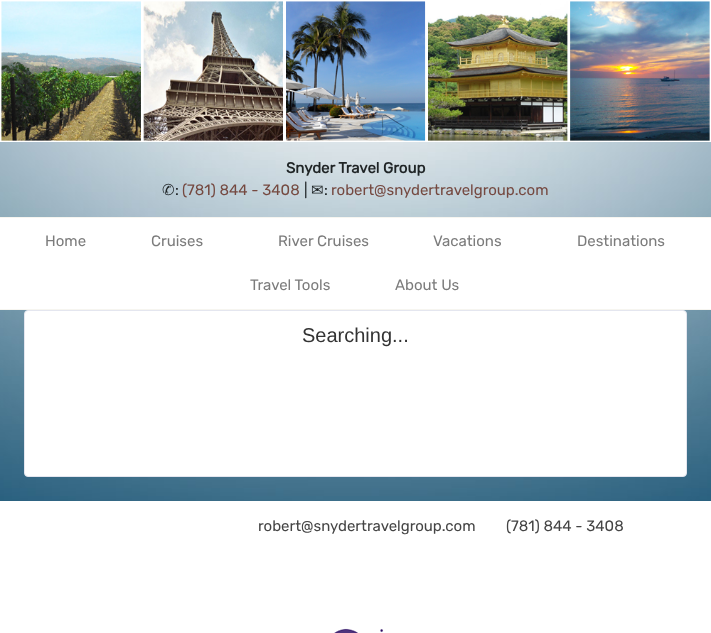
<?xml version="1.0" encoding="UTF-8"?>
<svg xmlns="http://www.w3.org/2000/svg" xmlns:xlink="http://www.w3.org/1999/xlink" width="711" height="633">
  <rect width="100%" height="100%" fill="#ffffff" />
  <image x="0" y="142" width="711" height="359" xlink:href="image1.png" />
  <image x="0" y="0" width="711" height="142" xlink:href="image2.png" />
  <rect y="218" width="711" height="91" fill="#ffffff" />
  <rect y="217" width="711" height="1" fill="#f6f5f0" />
  <rect y="309" width="711" height="1" fill="#f6f5f0" />
  <rect x="24.5" y="310.5" width="662" height="166" rx="3.5" fill="#ffffff" stroke="#e4e6ef" />
  <image x="334" y="628" width="50" height="5" xlink:href="image3.png" />
  <text x="286" y="173" style="font-family: Rubik; font-size: 15px; font-weight: bold; fill: #1f2426">Snyder Travel Group</text>
  <text x="162" y="195" style="font-family: DejaVu Sans; font-size: 15px; fill: #1f2426">✆</text>
  <text x="175" y="195" style="font-family: Rubik; font-size: 15px; font-weight: 300; fill: #1f2426">:</text>
  <text x="182" y="195" style="font-family: Rubik; font-size: 15px; font-weight: 300; fill: #754940">(781) 844 - 3408</text>
  <text x="304" y="195" style="font-family: Rubik; font-size: 15px; font-weight: 300; fill: #1f2426">|</text>
  <text x="311" y="195" style="font-family: DejaVu Sans; font-size: 15px; fill: #1f2426">✉</text>
  <text x="324" y="195" style="font-family: Rubik; font-size: 15px; font-weight: 300; fill: #1f2426">:</text>
  <text x="331" y="195" style="font-family: Rubik; font-size: 15px; font-weight: 300; fill: #754940">robert@snydertravelgroup.com</text>
  <text x="45" y="246" style="font-family: Rubik; font-size: 15px; font-weight: 300; fill: #7c7c7c">Home</text>
  <text x="151" y="246" style="font-family: Rubik; font-size: 15px; font-weight: 300; fill: #7c7c7c">Cruises</text>
  <text x="278" y="246" style="font-family: Rubik; font-size: 15px; font-weight: 300; fill: #7c7c7c">River Cruises</text>
  <text x="433" y="246" style="font-family: Rubik; font-size: 15px; font-weight: 300; fill: #7c7c7c">Vacations</text>
  <text x="577" y="246" style="font-family: Rubik; font-size: 15px; font-weight: 300; fill: #7c7c7c">Destinations</text>
  <text x="250" y="290" style="font-family: Rubik; font-size: 15px; font-weight: 300; fill: #7c7c7c">Travel Tools</text>
  <text x="395" y="290" style="font-family: Rubik; font-size: 15px; font-weight: 300; fill: #7c7c7c">About Us</text>
  <text x="302" y="342" style="font-family: Liberation Sans; font-size: 20px; fill: #333333">Searching...</text>
  <text x="258" y="531" style="font-family: Rubik; font-size: 15px; font-weight: 300; fill: #444444">robert@snydertravelgroup.com</text>
  <text x="506" y="531" style="font-family: Rubik; font-size: 15px; font-weight: 300; fill: #444444">(781) 844 - 3408</text>
</svg>
